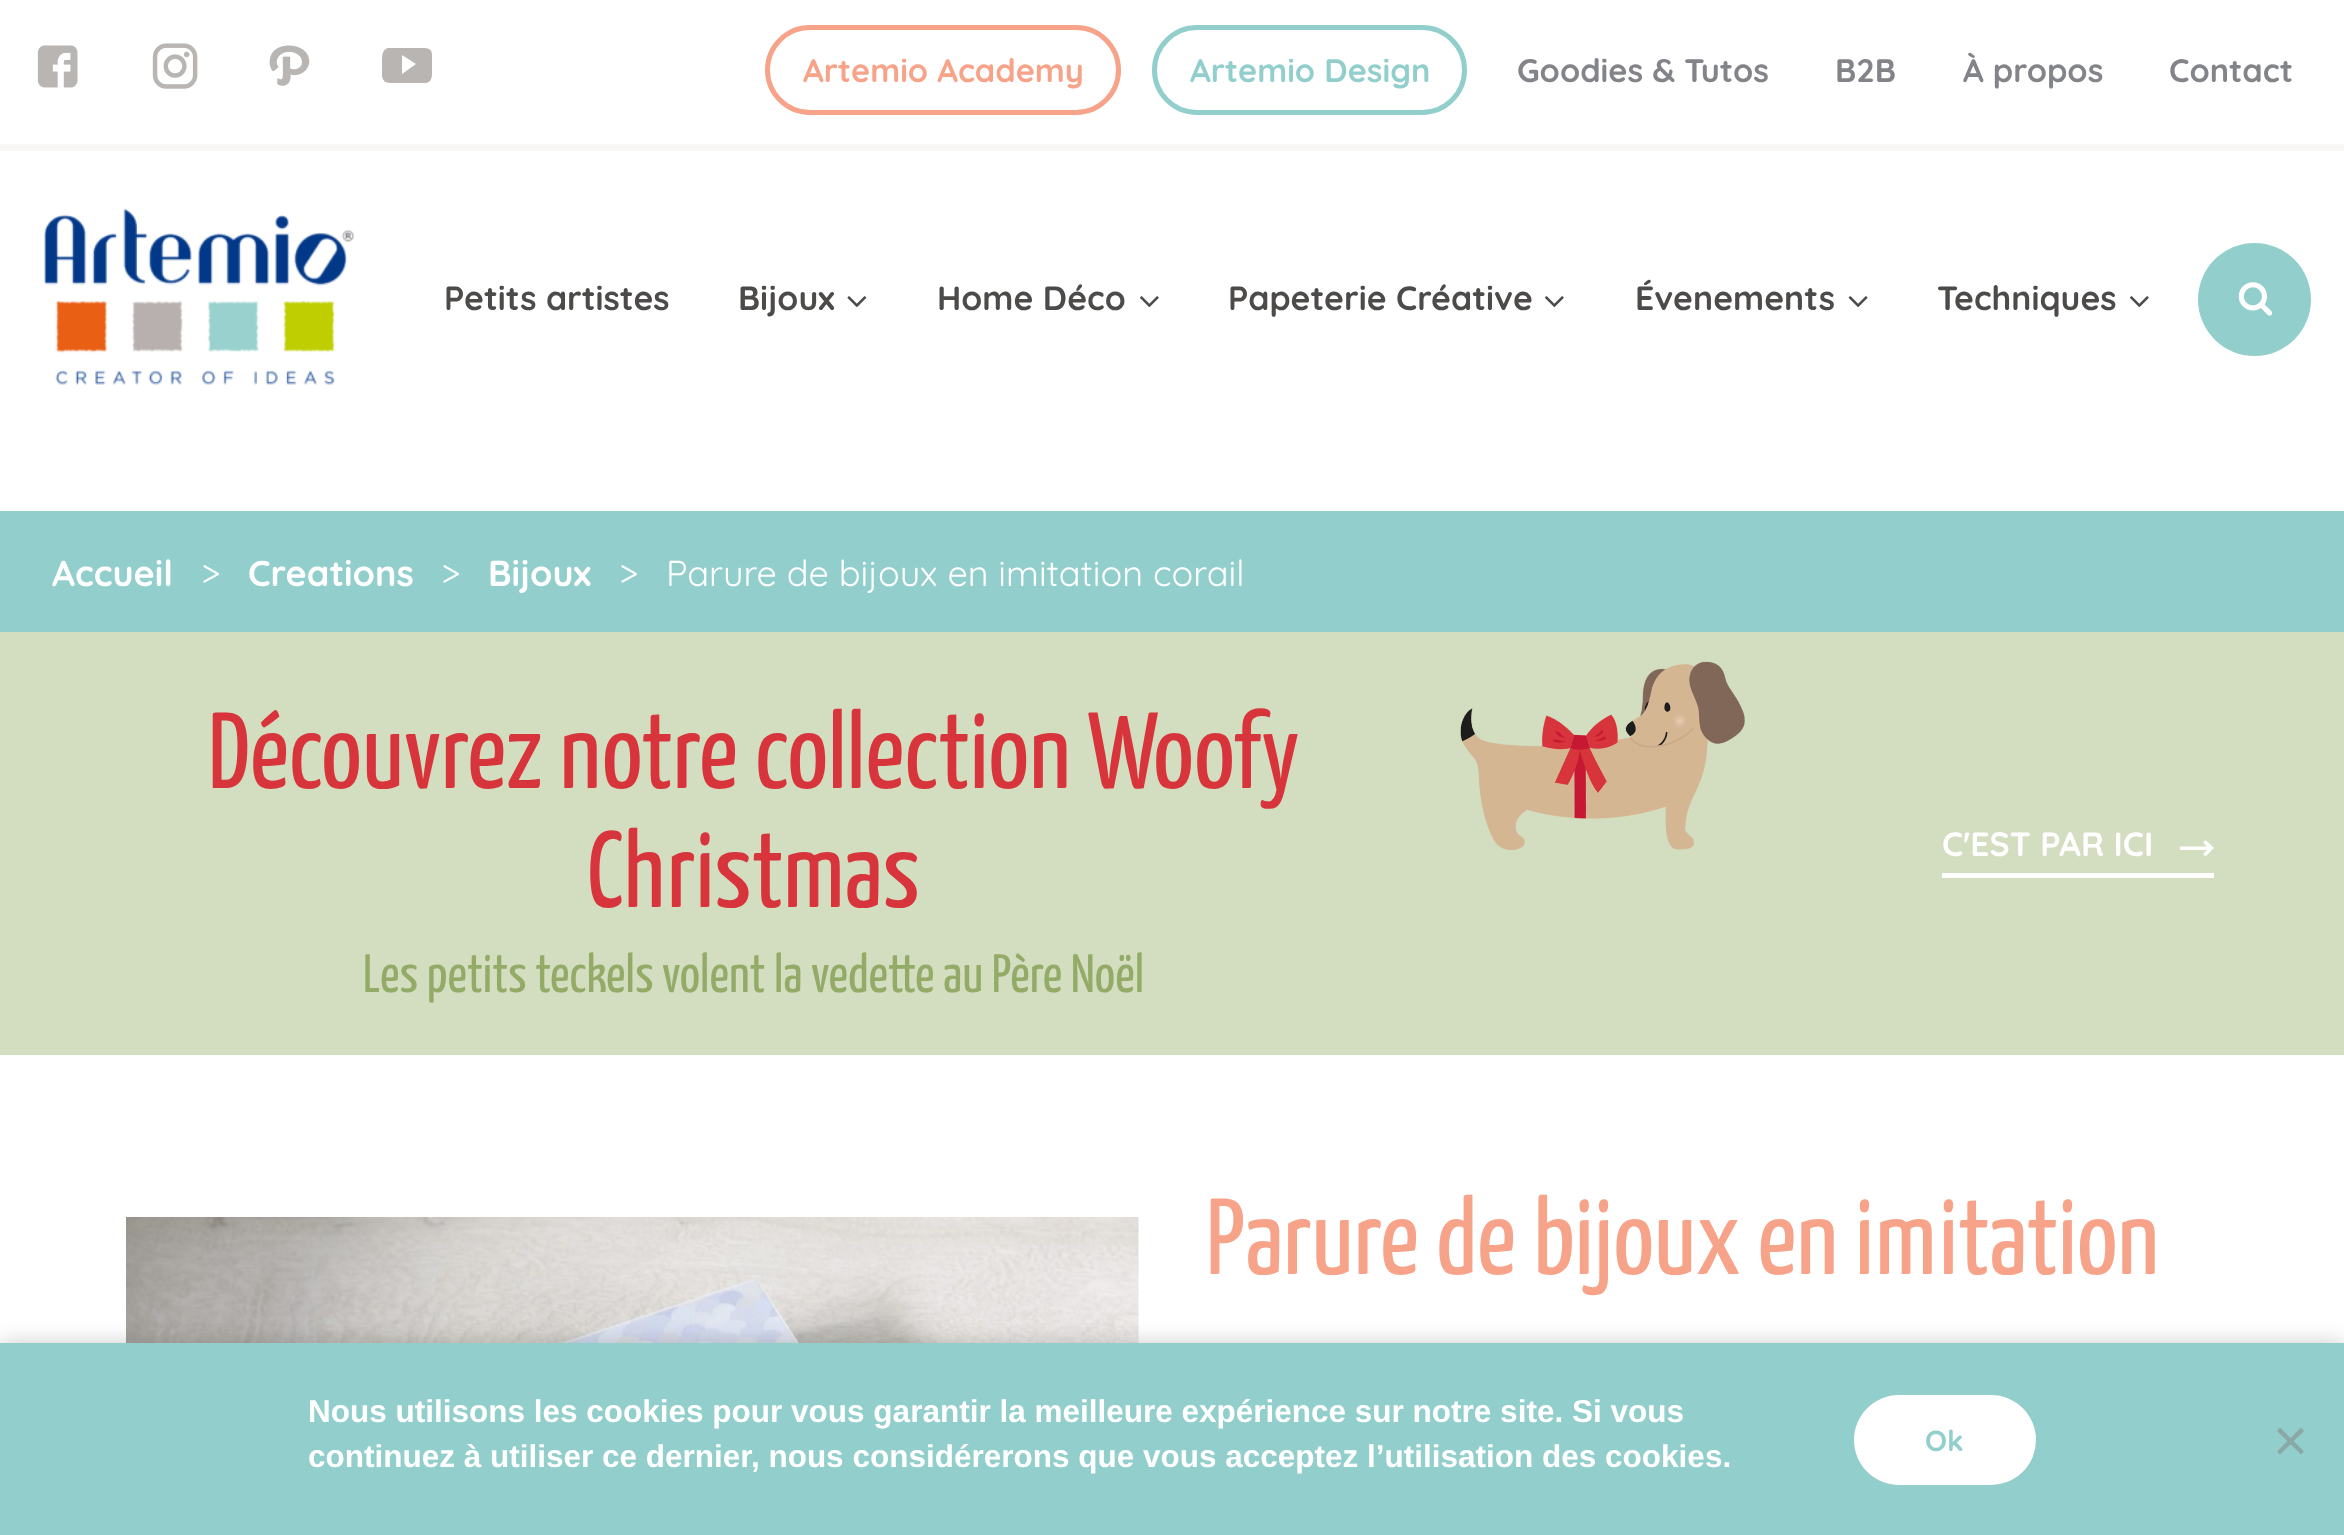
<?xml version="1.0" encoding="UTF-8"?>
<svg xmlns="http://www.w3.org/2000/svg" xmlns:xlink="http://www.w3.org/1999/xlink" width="2344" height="1535">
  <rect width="100%" height="100%" fill="#ffffff" />
  <rect y="144" width="2344" height="7" fill="#f8f7f6" />
  <image x="37" y="45" width="41" height="43" xlink:href="image1.png" />
  <image x="152" y="43" width="46" height="46" xlink:href="image2.png" />
  <image x="269" y="45" width="41" height="41" xlink:href="image3.png" />
  <path d="M 432 55 c 0 -8 -7 -7 -13 -7 h -31 c -6 1 -6 9 -6 14 v 14 c 1 8 8 7 14 7 h 30 c 7 -1 6 -9 6 -14 z m -30 19 v -19 l 14 9 z" fill="#b8b5b2" />
  <rect x="767.5" y="27.5" width="351" height="85" rx="42.5" fill="none" stroke="#f6a389" stroke-width="5" />
  <rect x="1154.5" y="27.5" width="310" height="85" rx="42.5" fill="none" stroke="#92cfcc" stroke-width="5" />
  <image x="44" y="208" width="310" height="177" xlink:href="image4.png" />
  <image x="847" y="296" width="20" height="11" xlink:href="image5.png" />
  <image x="1140" y="296" width="19" height="11" xlink:href="image6.png" />
  <image x="1545" y="296" width="19" height="11" xlink:href="image6.png" />
  <image x="1848" y="296" width="20" height="11" xlink:href="image7.png" />
  <image x="2130" y="296" width="19" height="11" xlink:href="image6.png" />
  <circle cx="2254.5" cy="299.5" r="56.5" fill="#92cfcc" />
  <image x="2238" y="282" width="35" height="34" xlink:href="image8.png" />
  <rect y="511" width="2344" height="121" fill="#92cfcc" />
  <rect y="632" width="2344" height="423" fill="#d3ddc0" />
  <image x="1460" y="661" width="285" height="189" xlink:href="image9.png" />
  <path d="M 2205.5 840 l -2.5 2.5 l 4 4 h -27 v 3.5 h 27 l -4 4 l 2.5 2.5 l 8.5 -8.5 z" fill="#ffffff" />
  <rect x="1942" y="873" width="272" height="5" fill="#ffffff" />
  <image x="126" y="1217" width="1013" height="126" xlink:href="image10.png" />
  <rect y="1343" width="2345" height="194" fill="#000000" fill-opacity="0.2" filter="blur(11px)" />
  <rect y="1343" width="2344" height="192" fill="#92cfcc" />
  <rect x="1854" y="1395" width="182" height="90" rx="45" fill="#ffffff" />
  <path d="M 2301 1427.5 l 3 3.5 l -24 23.5 l -3 -3 z" fill="#89a8a6" />
  <path d="M 2277 1431 l 3 -3.5 l 24 24 l -3 3 z" fill="#89a8a6" />
  <text x="803" y="82" style="font-family: Quicksand; font-size: 32.5px; font-weight: bold; fill: #f6a389">Artemio Academy</text>
  <text x="1190" y="82" style="font-family: Quicksand; font-size: 32.5px; font-weight: bold; fill: #92cfcc">Artemio Design</text>
  <text x="1517" y="82" style="font-family: Quicksand; font-size: 32.5px; font-weight: bold; fill: #838489">Goodies &amp; Tutos</text>
  <text x="1835" y="82" style="font-family: Quicksand; font-size: 32.5px; font-weight: bold; fill: #838489">B2B</text>
  <text x="1963" y="82" style="font-family: Quicksand; font-size: 32.5px; font-weight: bold; fill: #838489">À propos</text>
  <text x="2169" y="82" style="font-family: Quicksand; font-size: 32.5px; font-weight: bold; fill: #838489">Contact</text>
  <text x="444" y="310" style="font-family: Quicksand; font-size: 33.75px; font-weight: bold; fill: #4c4b49">Petits artistes</text>
  <text x="738" y="310" style="font-family: Quicksand; font-size: 33.75px; font-weight: bold; fill: #4c4b49">Bijoux</text>
  <text x="937" y="310" style="font-family: Quicksand; font-size: 33.75px; font-weight: bold; fill: #4c4b49">Home Déco</text>
  <text x="1228" y="310" style="font-family: Quicksand; font-size: 33.75px; font-weight: bold; fill: #4c4b49">Papeterie Créative</text>
  <text x="1635" y="310" style="font-family: Quicksand; font-size: 33.75px; font-weight: bold; fill: #4c4b49">Évenements</text>
  <text x="1937" y="310" style="font-family: Quicksand; font-size: 33.75px; font-weight: bold; fill: #4c4b49">Techniques</text>
  <text x="52" y="586" style="font-family: Quicksand; font-size: 36px; font-weight: bold; fill: #ffffff">Accueil</text>
  <text x="201" y="586" style="font-family: Quicksand; font-size: 36px; fill: #ffffff">&gt;</text>
  <text x="248" y="586" style="font-family: Quicksand; font-size: 36px; font-weight: bold; fill: #ffffff">Creations</text>
  <text x="441" y="586" style="font-family: Quicksand; font-size: 36px; fill: #ffffff">&gt;</text>
  <text x="488" y="586" style="font-family: Quicksand; font-size: 36px; font-weight: bold; fill: #ffffff">Bijoux</text>
  <text x="619" y="586" style="font-family: Quicksand; font-size: 36px; fill: #ffffff">&gt;</text>
  <text x="666" y="586" style="font-family: Quicksand; font-size: 36px; fill: #ffffff">Parure de bijoux en imitation corail</text>
  <text x="208" y="788" style="font-family: Yanone Kaffeesatz; font-size: 108px; fill: #d7343b">Découvrez notre collection Woofy</text>
  <text x="587" y="907" style="font-family: Yanone Kaffeesatz; font-size: 108px; fill: #d7343b">Christmas</text>
  <text x="363" y="992" style="font-family: Yanone Kaffeesatz; font-size: 54px; fill: #94ab68">Les petits teckels volent la vedette au Père Noël</text>
  <text x="1942" y="856" style="font-family: Quicksand; font-size: 33.75px; font-weight: bold; fill: #ffffff">C'EST PAR ICI</text>
  <text x="1206" y="1274" style="font-family: Yanone Kaffeesatz; font-size: 108px; fill: #f6a389">Parure de bijoux en imitation</text>
  <text x="308" y="1422" style="font-family: Liberation Sans; font-size: 31.5px; font-weight: bold; fill: #ffffff">Nous utilisons les cookies pour vous garantir la meilleure expérience sur notre site. Si vous</text>
  <text x="308" y="1467" style="font-family: Liberation Sans; font-size: 31.5px; font-weight: bold; fill: #ffffff">continuez à utiliser ce dernier, nous considérerons que vous acceptez l’utilisation des cookies.</text>
  <text x="1925" y="1451" style="font-family: Quicksand; font-size: 29px; font-weight: bold; fill: #92cfcc">Ok</text>
</svg>
